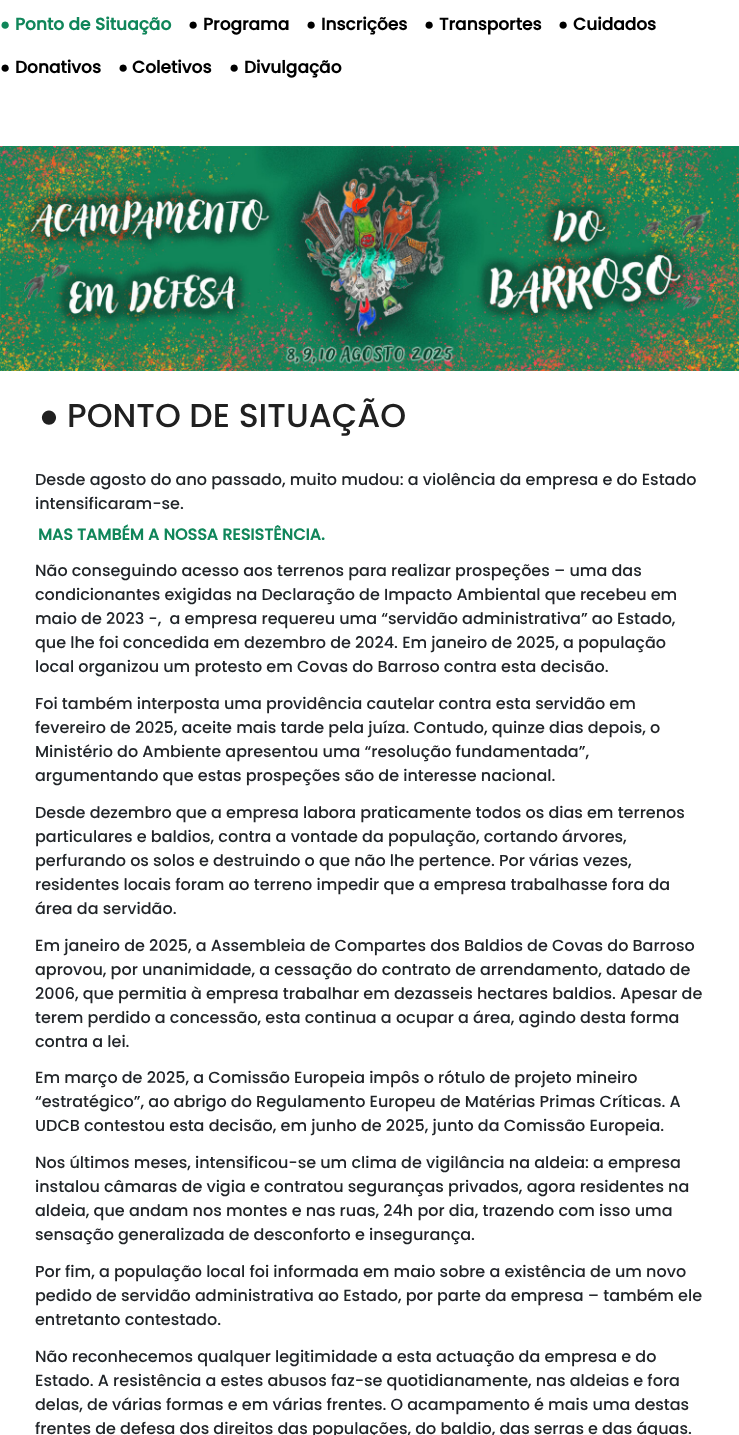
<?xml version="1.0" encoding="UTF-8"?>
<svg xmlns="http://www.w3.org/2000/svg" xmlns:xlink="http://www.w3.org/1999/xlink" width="739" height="1435">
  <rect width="100%" height="100%" fill="#ffffff" />
  <image x="0" y="146" width="739" height="225" xlink:href="image1.png" />
  <text x="0" y="30" style="font-family: Liberation Serif; font-size: 17px; font-weight: bold; fill: #10865a">●</text>
  <text x="15" y="30" style="font-family: Poppins; font-size: 17px; font-weight: bold; fill: #10865a">Ponto de Situação</text>
  <text x="188" y="30" style="font-family: Liberation Serif; font-size: 17px; font-weight: bold; fill: #000000">●</text>
  <text x="203" y="30" style="font-family: Poppins; font-size: 17px; font-weight: bold; fill: #000000">Programa</text>
  <text x="306" y="30" style="font-family: Liberation Serif; font-size: 17px; font-weight: bold; fill: #000000">●</text>
  <text x="321" y="30" style="font-family: Poppins; font-size: 17px; font-weight: bold; fill: #000000">Inscrições</text>
  <text x="424" y="30" style="font-family: Liberation Serif; font-size: 17px; font-weight: bold; fill: #000000">●</text>
  <text x="439" y="30" style="font-family: Poppins; font-size: 17px; font-weight: bold; fill: #000000">Transportes</text>
  <text x="558" y="30" style="font-family: Liberation Serif; font-size: 17px; font-weight: bold; fill: #000000">●</text>
  <text x="573" y="30" style="font-family: Poppins; font-size: 17px; font-weight: bold; fill: #000000">Cuidados</text>
  <text x="0" y="73" style="font-family: Liberation Serif; font-size: 17px; font-weight: bold; fill: #000000">●</text>
  <text x="15" y="73" style="font-family: Poppins; font-size: 17px; font-weight: bold; fill: #000000">Donativos</text>
  <text x="118" y="73" style="font-family: Liberation Serif; font-size: 17px; font-weight: bold; fill: #000000">●</text>
  <text x="132" y="73" style="font-family: Poppins; font-size: 17px; font-weight: bold; fill: #000000">Coletivos</text>
  <text x="229" y="73" style="font-family: Liberation Serif; font-size: 17px; font-weight: bold; fill: #000000">●</text>
  <text x="244" y="73" style="font-family: Poppins; font-size: 17px; font-weight: bold; fill: #000000">Divulgação</text>
  <text x="39" y="427" style="font-family: Liberation Serif; font-size: 33px; fill: #202020">●</text>
  <text x="67" y="427" style="font-family: Poppins; font-size: 33px; font-weight: 500; fill: #202020">PONTO DE SITUAÇÃO</text>
  <text x="35" y="485" style="font-family: Poppins; font-size: 16px; font-weight: 500; fill: #212529">Desde agosto do ano passado, muito mudou: a violência da empresa e do Estado</text>
  <text x="35" y="509" style="font-family: Poppins; font-size: 16px; font-weight: 500; fill: #212529">intensificaram-se.</text>
  <text x="38" y="540" style="font-family: Poppins; font-size: 16px; font-weight: bold; fill: #10865a">MAS TAMBÉM A NOSSA RESISTÊNCIA.</text>
  <text x="35" y="576" style="font-family: Poppins; font-size: 16px; font-weight: 500; fill: #212529">Não conseguindo acesso aos terrenos para realizar prospeções – uma das</text>
  <text x="35" y="600" style="font-family: Poppins; font-size: 16px; font-weight: 500; fill: #212529">condicionantes exigidas na Declaração de Impacto Ambiental que recebeu em</text>
  <text x="35" y="624" style="font-family: Poppins; font-size: 16px; font-weight: 500; fill: #212529" xml:space="preserve">maio de 2023 -,  a empresa requereu uma “servidão administrativa” ao Estado,</text>
  <text x="35" y="648" style="font-family: Poppins; font-size: 16px; font-weight: 500; fill: #212529">que lhe foi concedida em dezembro de 2024. Em janeiro de 2025, a população</text>
  <text x="35" y="672" style="font-family: Poppins; font-size: 16px; font-weight: 500; fill: #212529">local organizou um protesto em Covas do Barroso contra esta decisão.</text>
  <text x="35" y="709" style="font-family: Poppins; font-size: 16px; font-weight: 500; fill: #212529">Foi também interposta uma providência cautelar contra esta servidão em</text>
  <text x="35" y="733" style="font-family: Poppins; font-size: 16px; font-weight: 500; fill: #212529">fevereiro de 2025, aceite mais tarde pela juíza. Contudo, quinze dias depois, o</text>
  <text x="35" y="757" style="font-family: Poppins; font-size: 16px; font-weight: 500; fill: #212529">Ministério do Ambiente apresentou uma “resolução fundamentada”,</text>
  <text x="35" y="781" style="font-family: Poppins; font-size: 16px; font-weight: 500; fill: #212529">argumentando que estas prospeções são de interesse nacional.</text>
  <text x="35" y="818" style="font-family: Poppins; font-size: 16px; font-weight: 500; fill: #212529">Desde dezembro que a empresa labora praticamente todos os dias em terrenos</text>
  <text x="35" y="842" style="font-family: Poppins; font-size: 16px; font-weight: 500; fill: #212529">particulares e baldios, contra a vontade da população, cortando árvores,</text>
  <text x="35" y="866" style="font-family: Poppins; font-size: 16px; font-weight: 500; fill: #212529">perfurando os solos e destruindo o que não lhe pertence. Por várias vezes,</text>
  <text x="35" y="890" style="font-family: Poppins; font-size: 16px; font-weight: 500; fill: #212529">residentes locais foram ao terreno impedir que a empresa trabalhasse fora da</text>
  <text x="35" y="914" style="font-family: Poppins; font-size: 16px; font-weight: 500; fill: #212529">área da servidão.</text>
  <text x="35" y="951" style="font-family: Poppins; font-size: 16px; font-weight: 500; fill: #212529">Em janeiro de 2025, a Assembleia de Compartes dos Baldios de Covas do Barroso</text>
  <text x="35" y="975" style="font-family: Poppins; font-size: 16px; font-weight: 500; fill: #212529">aprovou, por unanimidade, a cessação do contrato de arrendamento, datado de</text>
  <text x="35" y="999" style="font-family: Poppins; font-size: 16px; font-weight: 500; fill: #212529">2006, que permitia à empresa trabalhar em dezasseis hectares baldios. Apesar de</text>
  <text x="35" y="1023" style="font-family: Poppins; font-size: 16px; font-weight: 500; fill: #212529">terem perdido a concessão, esta continua a ocupar a área, agindo desta forma</text>
  <text x="35" y="1047" style="font-family: Poppins; font-size: 16px; font-weight: 500; fill: #212529">contra a lei.</text>
  <text x="35" y="1083" style="font-family: Poppins; font-size: 16px; font-weight: 500; fill: #212529">Em março de 2025, a Comissão Europeia impôs o rótulo de projeto mineiro</text>
  <text x="35" y="1107" style="font-family: Poppins; font-size: 16px; font-weight: 500; fill: #212529">“estratégico”, ao abrigo do Regulamento Europeu de Matérias Primas Críticas. A</text>
  <text x="35" y="1131" style="font-family: Poppins; font-size: 16px; font-weight: 500; fill: #212529">UDCB contestou esta decisão, em junho de 2025, junto da Comissão Europeia.</text>
  <text x="35" y="1168" style="font-family: Poppins; font-size: 16px; font-weight: 500; fill: #212529">Nos últimos meses, intensificou-se um clima de vigilância na aldeia: a empresa</text>
  <text x="35" y="1192" style="font-family: Poppins; font-size: 16px; font-weight: 500; fill: #212529">instalou câmaras de vigia e contratou seguranças privados, agora residentes na</text>
  <text x="35" y="1216" style="font-family: Poppins; font-size: 16px; font-weight: 500; fill: #212529">aldeia, que andam nos montes e nas ruas, 24h por dia, trazendo com isso uma</text>
  <text x="35" y="1240" style="font-family: Poppins; font-size: 16px; font-weight: 500; fill: #212529">sensação generalizada de desconforto e insegurança.</text>
  <text x="35" y="1277" style="font-family: Poppins; font-size: 16px; font-weight: 500; fill: #212529">Por fim, a população local foi informada em maio sobre a existência de um novo</text>
  <text x="35" y="1301" style="font-family: Poppins; font-size: 16px; font-weight: 500; fill: #212529">pedido de servidão administrativa ao Estado, por parte da empresa – também ele</text>
  <text x="35" y="1325" style="font-family: Poppins; font-size: 16px; font-weight: 500; fill: #212529">entretanto contestado.</text>
  <text x="35" y="1362" style="font-family: Poppins; font-size: 16px; font-weight: 500; fill: #212529">Não reconhecemos qualquer legitimidade a esta actuação da empresa e do</text>
  <text x="35" y="1386" style="font-family: Poppins; font-size: 16px; font-weight: 500; fill: #212529">Estado. A resistência a estes abusos faz-se quotidianamente, nas aldeias e fora</text>
  <text x="35" y="1410" style="font-family: Poppins; font-size: 16px; font-weight: 500; fill: #212529">delas, de várias formas e em várias frentes. O acampamento é mais uma destas</text>
  <text x="35" y="1434" style="font-family: Poppins; font-size: 16px; font-weight: 500; fill: #212529">frentes de defesa dos direitos das populações, do baldio, das serras e das águas.</text>
</svg>
